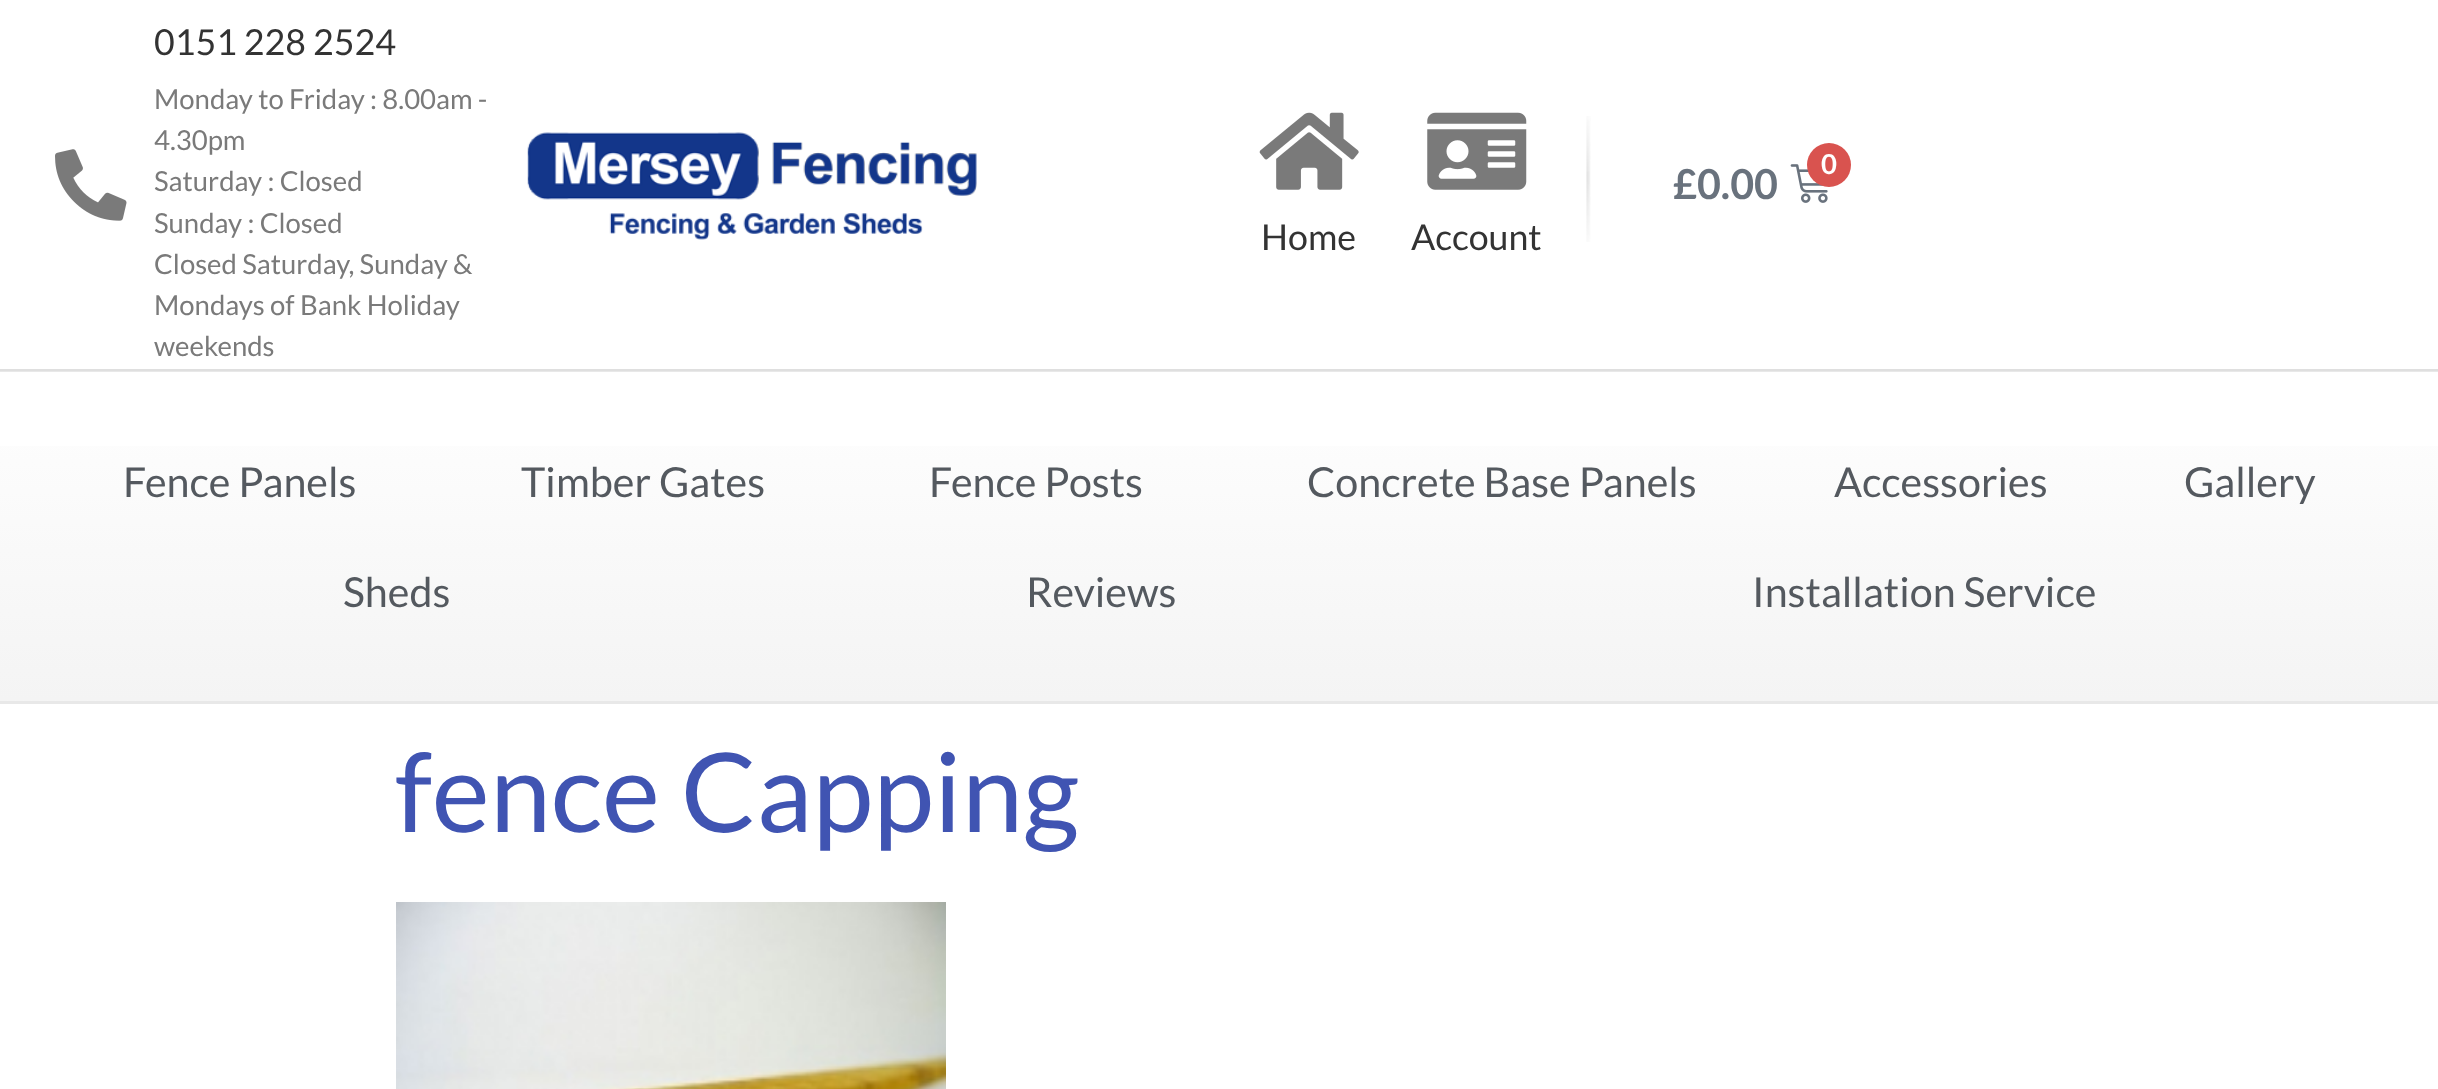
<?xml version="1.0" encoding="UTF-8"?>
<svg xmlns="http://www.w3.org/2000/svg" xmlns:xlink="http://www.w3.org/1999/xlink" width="2438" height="1089">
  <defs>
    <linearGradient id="g1" gradientUnits="userSpaceOnUse" x1="1220" y1="41" x2="1220" y2="371"><stop offset="0" stop-color="#e8e8e8" /><stop offset="1" stop-color="#dfdfdf" /></linearGradient>
    <linearGradient id="g2" gradientUnits="userSpaceOnUse" x1="1220" y1="371" x2="1220" y2="701"><stop offset="0" stop-color="#ffffff" /><stop offset="1" stop-color="#f4f4f4" /></linearGradient>
    <linearGradient id="g3" gradientUnits="userSpaceOnUse" x1="1220" y1="371" x2="1220" y2="701"><stop offset="0" stop-color="#e8e8e8" /><stop offset="1" stop-color="#dfdfdf" /></linearGradient>
  </defs>
  <rect width="100%" height="100%" fill="#ffffff" />
  <image x="55" y="149" width="72" height="72" xlink:href="image1.png" />
  <image x="527" y="132" width="450" height="108" xlink:href="image2.png" />
  <image x="1586" y="116" width="5" height="126" xlink:href="image3.png" />
  <image x="1790" y="164" width="38" height="39" xlink:href="image4.png" />
  <circle cx="1829" cy="165" r="22" fill="#d9534f" />
  <image x="1259" y="112" width="100" height="78" xlink:href="image5.png" />
  <image x="1427" y="112" width="100" height="78" xlink:href="image6.png" />
  <rect y="369" width="2438" height="2" fill="url(#g1)" />
  <rect y="446" width="2438" height="255" fill="url(#g2)" />
  <rect y="371" width="2438" height="1" fill="url(#g3)" />
  <rect y="701" width="2438" height="3" fill="#e8e8e8" />
  <image x="396" y="902" width="550" height="187" xlink:href="image7.png" />
  <text x="154" y="55" style="font-family: Lato; font-size: 35.75px; fill: #333333">0151 228 2524</text>
  <text x="154" y="109" style="font-family: Lato; font-size: 27.5px; fill: #7a7a7a">Monday to Friday : 8.00am -</text>
  <text x="154" y="150" style="font-family: Lato; font-size: 27.5px; fill: #7a7a7a">4.30pm</text>
  <text x="154" y="191" style="font-family: Lato; font-size: 27.5px; fill: #7a7a7a">Saturday : Closed</text>
  <text x="154" y="233" style="font-family: Lato; font-size: 27.5px; fill: #7a7a7a">Sunday : Closed</text>
  <text x="154" y="274" style="font-family: Lato; font-size: 27.5px; fill: #7a7a7a">Closed Saturday, Sunday &amp;</text>
  <text x="154" y="315" style="font-family: Lato; font-size: 27.5px; fill: #7a7a7a">Mondays of Bank Holiday</text>
  <text x="154" y="356" style="font-family: Lato; font-size: 27.5px; fill: #7a7a7a">weekends</text>
  <text x="1821" y="174" style="font-family: Lato; font-size: 27.5px; font-weight: bold; fill: #ffffff">0</text>
  <text x="1673" y="199" style="font-family: Lato; font-size: 41.25px; font-weight: bold; fill: #69727d">£0.00</text>
  <text x="1261" y="250" style="font-family: Lato; font-size: 35.75px; fill: #333333">Home</text>
  <text x="1411" y="250" style="font-family: Lato; font-size: 35.75px; fill: #333333">Account</text>
  <text x="123" y="497" style="font-family: Lato; font-size: 41.25px; fill: #54595f">Fence Panels</text>
  <text x="521" y="497" style="font-family: Lato; font-size: 41.25px; fill: #54595f">Timber Gates</text>
  <text x="929" y="497" style="font-family: Lato; font-size: 41.25px; fill: #54595f">Fence Posts</text>
  <text x="1307" y="497" style="font-family: Lato; font-size: 41.25px; fill: #54595f">Concrete Base Panels</text>
  <text x="1834" y="497" style="font-family: Lato; font-size: 41.25px; fill: #54595f">Accessories</text>
  <text x="2184" y="497" style="font-family: Lato; font-size: 41.25px; fill: #54595f">Gallery</text>
  <text x="343" y="607" style="font-family: Lato; font-size: 41.25px; fill: #54595f">Sheds</text>
  <text x="1026" y="607" style="font-family: Lato; font-size: 41.25px; fill: #54595f">Reviews</text>
  <text x="1752" y="607" style="font-family: Lato; font-size: 41.25px; fill: #54595f">Installation Service</text>
  <text x="395" y="832" style="font-family: Lato; font-size: 110px; fill: #4054b2">fence Capping</text>
</svg>
